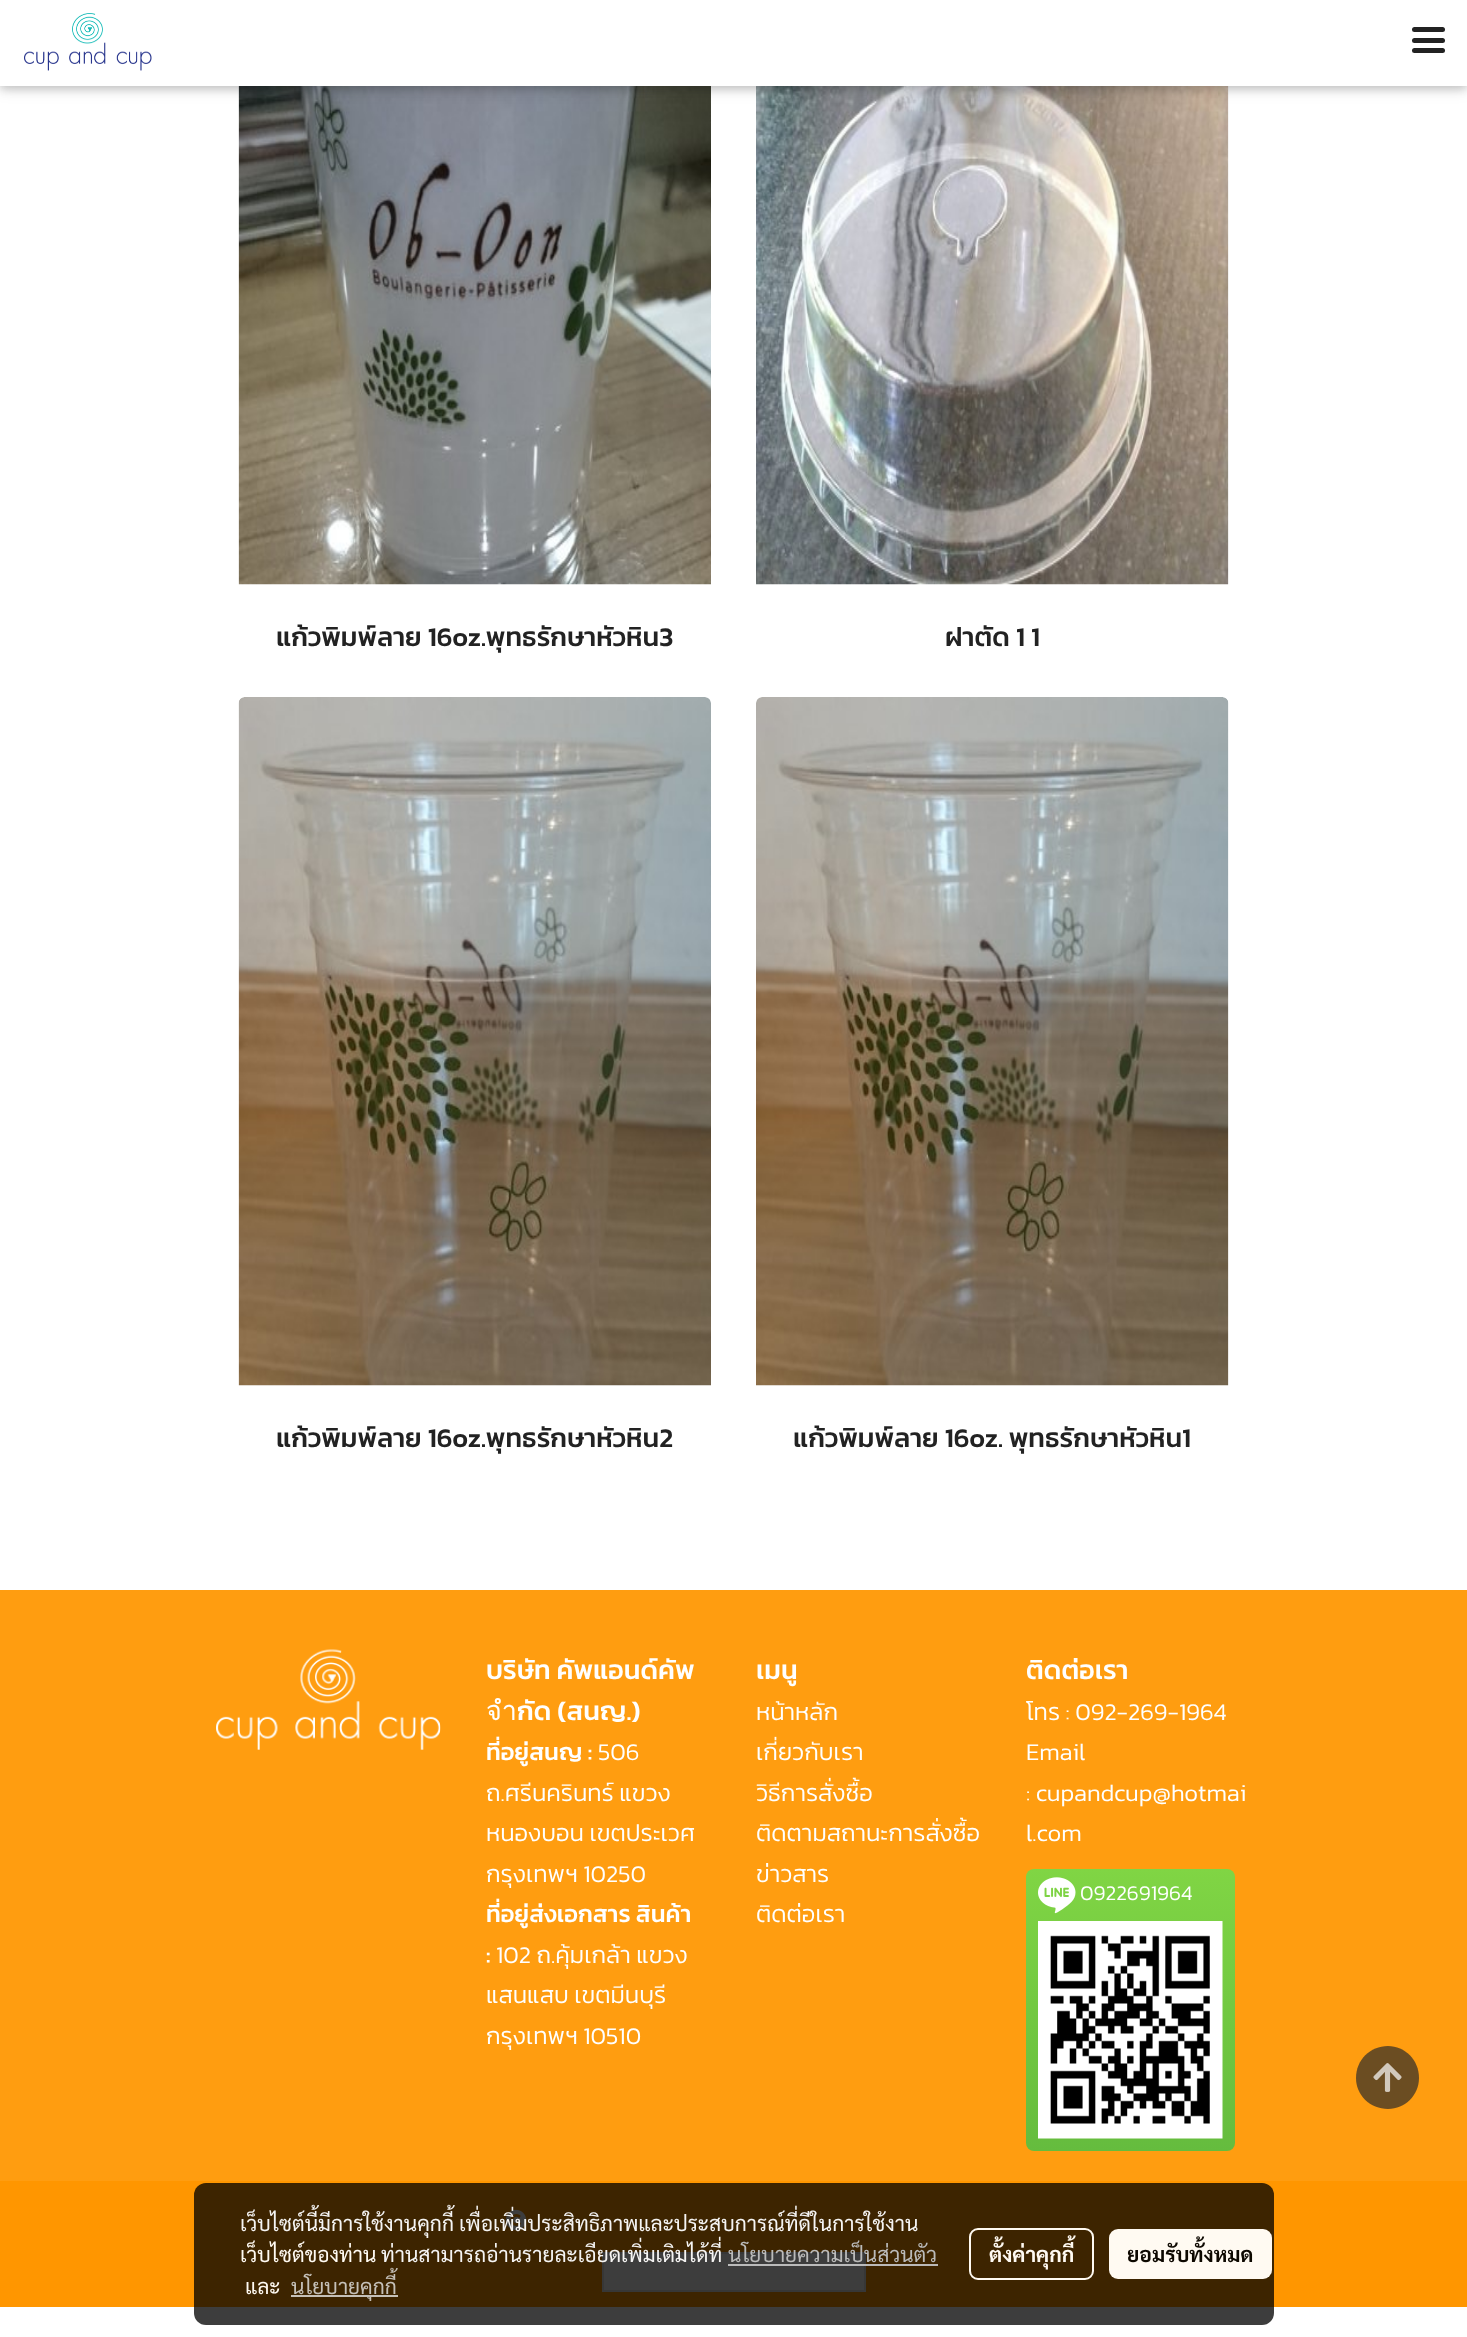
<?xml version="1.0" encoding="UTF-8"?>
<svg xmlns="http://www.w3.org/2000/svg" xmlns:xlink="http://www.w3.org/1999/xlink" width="1467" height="2337">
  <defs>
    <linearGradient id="g1" gradientUnits="userSpaceOnUse" x1="1130" y1="1869" x2="1130" y2="2151"><stop offset="0" stop-color="#80d544" /><stop offset="1" stop-color="#65bc3e" /></linearGradient>
  </defs>
  <rect width="100%" height="100%" fill="#ffffff" />
  <image x="238" y="86" width="473" height="499" xlink:href="image2.png" />
  <image x="756" y="86" width="473" height="499" xlink:href="image3.png" />
  <rect y="3" width="1467" height="86" fill="#000000" fill-opacity="0.12" filter="blur(7.5px)" />
  <rect y="3" width="1467" height="86" fill="#000000" fill-opacity="0.16" filter="blur(4px)" />
  <rect width="1467" height="86" fill="#ffffff" />
  <image x="24" y="13" width="128" height="58" xlink:href="image1.png" />
  <rect x="1412" y="38" width="33" height="5" rx="2.5" fill="#222222" />
  <rect x="1412" y="27" width="33" height="5" rx="2.5" fill="#222222" />
  <rect x="1412" y="48" width="33" height="5" rx="2.5" fill="#222222" />
  <image x="238" y="697" width="473" height="689" xlink:href="image4.png" />
  <image x="756" y="697" width="473" height="689" xlink:href="image5.png" />
  <rect y="1590" width="1467" height="591" fill="#ff9d10" />
  <image x="216" y="1649" width="225" height="101" xlink:href="image6.png" />
  <rect x="1026" y="1869" width="209" height="282" rx="8" fill="url(#g1)" />
  <image x="1038" y="1877" width="38" height="37" xlink:href="image7.png" />
  <image x="1038" y="1921" width="185" height="218" xlink:href="image8.png" />
  <rect y="2181" width="1467" height="126" fill="#ff9600" />
  <image x="505" y="2209" width="22" height="22" xlink:href="image9.png" />
  <rect x="603" y="2253" width="262" height="38" fill="#ffffff" stroke="#e5e5e5" stroke-width="2" />
  <path d="M 1388 2046 c -18 0 -32 14 -32 32 c 0 17 14 31 32 31 c 17 0 31 -14 31 -31 c 0 -18 -14 -32 -31 -32 z" fill="#6b4d22" />
  <image x="1373" y="2063" width="29" height="29" xlink:href="image10.png" />
  <rect x="194" y="2183" width="1080" height="142" rx="12" fill="#000000" fill-opacity="0.76" />
  <rect x="728" y="2264" width="210" height="2" fill="#c2c2c2" fill-opacity="0.95" />
  <rect x="291" y="2295" width="107" height="2" fill="#c5c0b8" />
  <rect x="970" y="2229" width="123" height="50" rx="8" fill="none" stroke="#fffaf2" stroke-width="2" />
  <rect x="1109" y="2229" width="163" height="50" rx="9" fill="#fffaf2" />
  <text x="276" y="646" style="font-family: Kanit; font-size: 27px; font-weight: 500; fill: #222222">แก้วพิมพ์ลาย 16oz.พุทธรักษาหัวหิน3</text>
  <text x="945" y="646" style="font-family: Kanit; font-size: 27px; font-weight: 500; fill: #222222">ฝาตัด 1 1</text>
  <text x="276" y="1447" style="font-family: Kanit; font-size: 27px; font-weight: 500; fill: #222222">แก้วพิมพ์ลาย 16oz.พุทธรักษาหัวหิน2</text>
  <text x="793" y="1447" style="font-family: Kanit; font-size: 27px; font-weight: 500; fill: #222222">แก้วพิมพ์ลาย 16oz. พุทธรักษาหัวหิน1</text>
  <text x="486" y="1679" style="font-family: Kanit; font-size: 27px; font-weight: 500; fill: #ffffff">บริษัท คัพแอนด์คัพ</text>
  <text x="486" y="1720" style="font-family: Kanit; font-size: 27px; font-weight: 500; fill: #ffffff">จำกัด (สนญ.)</text>
  <text x="486" y="1760" style="font-family: Kanit; font-size: 24px; font-weight: 500; fill: #ffffff">ที่อยู่สนญ :</text>
  <text x="598" y="1760" style="font-family: Kanit; font-size: 24px; font-weight: 300; fill: #ffffff">506</text>
  <text x="486" y="1801" style="font-family: Kanit; font-size: 24px; font-weight: 300; fill: #ffffff">ถ.ศรีนครินทร์ แขวง</text>
  <text x="486" y="1841" style="font-family: Kanit; font-size: 24px; font-weight: 300; fill: #ffffff">หนองบอน เขตประเวศ</text>
  <text x="486" y="1882" style="font-family: Kanit; font-size: 24px; font-weight: 300; fill: #ffffff">กรุงเทพฯ 10250</text>
  <text x="486" y="1922" style="font-family: Kanit; font-size: 24px; font-weight: 500; fill: #ffffff">ที่อยู่ส่งเอกสาร สินค้า</text>
  <text x="486" y="1963" style="font-family: Kanit; font-size: 24px; font-weight: 500; fill: #ffffff">:</text>
  <text x="496" y="1963" style="font-family: Kanit; font-size: 24px; font-weight: 300; fill: #ffffff">102 ถ.คุ้มเกล้า แขวง</text>
  <text x="486" y="2003" style="font-family: Kanit; font-size: 24px; font-weight: 300; fill: #ffffff">แสนแสบ เขตมีนบุรี</text>
  <text x="486" y="2044" style="font-family: Kanit; font-size: 24px; font-weight: 300; fill: #ffffff">กรุงเทพฯ 10510</text>
  <text x="756" y="1679" style="font-family: Kanit; font-size: 27px; font-weight: 500; fill: #ffffff">เมนู</text>
  <text x="756" y="1720" style="font-family: Kanit; font-size: 24px; font-weight: 300; fill: #ffffff">หน้าหลัก</text>
  <text x="756" y="1760" style="font-family: Kanit; font-size: 24px; font-weight: 300; fill: #ffffff">เกี่ยวกับเรา</text>
  <text x="756" y="1801" style="font-family: Kanit; font-size: 24px; font-weight: 300; fill: #ffffff">วิธีการสั่งซื้อ</text>
  <text x="756" y="1841" style="font-family: Kanit; font-size: 24px; font-weight: 300; fill: #ffffff">ติดตามสถานะการสั่งซื้อ</text>
  <text x="756" y="1882" style="font-family: Kanit; font-size: 24px; font-weight: 300; fill: #ffffff">ข่าวสาร</text>
  <text x="756" y="1922" style="font-family: Kanit; font-size: 24px; font-weight: 300; fill: #ffffff">ติดต่อเรา</text>
  <text x="1026" y="1679" style="font-family: Kanit; font-size: 27px; font-weight: 500; fill: #ffffff">ติดต่อเรา</text>
  <text x="1026" y="1720" style="font-family: Kanit; font-size: 24px; font-weight: 300; fill: #ffffff">โทร : 092-269-1964</text>
  <text x="1026" y="1760" style="font-family: Kanit; font-size: 24px; font-weight: 300; fill: #ffffff">Email</text>
  <text x="1026" y="1801" style="font-family: Kanit; font-size: 24px; font-weight: 300; fill: #ffffff">: cupandcup@hotmai</text>
  <text x="1026" y="1841" style="font-family: Kanit; font-size: 24px; font-weight: 300; fill: #ffffff">l.com</text>
  <text x="1080" y="1900" style="font-family: Kanit; font-size: 21px; font-weight: 300; fill: #ffffff">0922691964</text>
  <text x="240" y="2231" style="font-family: Sarabun; font-size: 21px; fill: #f5f4f3">เว็บไซต์นี้มีการใช้งานคุกกี้ เพื่อเพิ่มประสิทธิภาพและประสบการณ์ที่ดีในการใช้งาน</text>
  <text x="240" y="2262" style="font-family: Sarabun; font-size: 21px; fill: #fffaf2">เว็บไซต์ของท่าน</text>
  <text x="381" y="2262" style="font-family: Sarabun; font-size: 21px; fill: #f5f4f3">ท่านสามารถอ่านรายละเอียดเพิ่มเติมได้ที่</text>
  <text x="728" y="2262" style="font-family: Sarabun; font-size: 21px; fill: #bbbbba">นโยบายความเป็นส่วนตัว</text>
  <text x="245" y="2294" style="font-family: Sarabun; font-size: 21px; fill: #fffaf2">และ</text>
  <text x="291" y="2294" style="font-family: Sarabun; font-size: 21px; fill: #c5c0b8">นโยบายคุกกี้</text>
  <text x="989" y="2262" style="font-family: Sarabun; font-size: 21px; font-weight: bold; fill: #fffaf2">ตั้งค่าคุกกี้</text>
  <text x="1127" y="2262" style="font-family: Sarabun; font-size: 21px; font-weight: bold; fill: #0d0800">ยอมรับทั้งหมด</text>
</svg>
